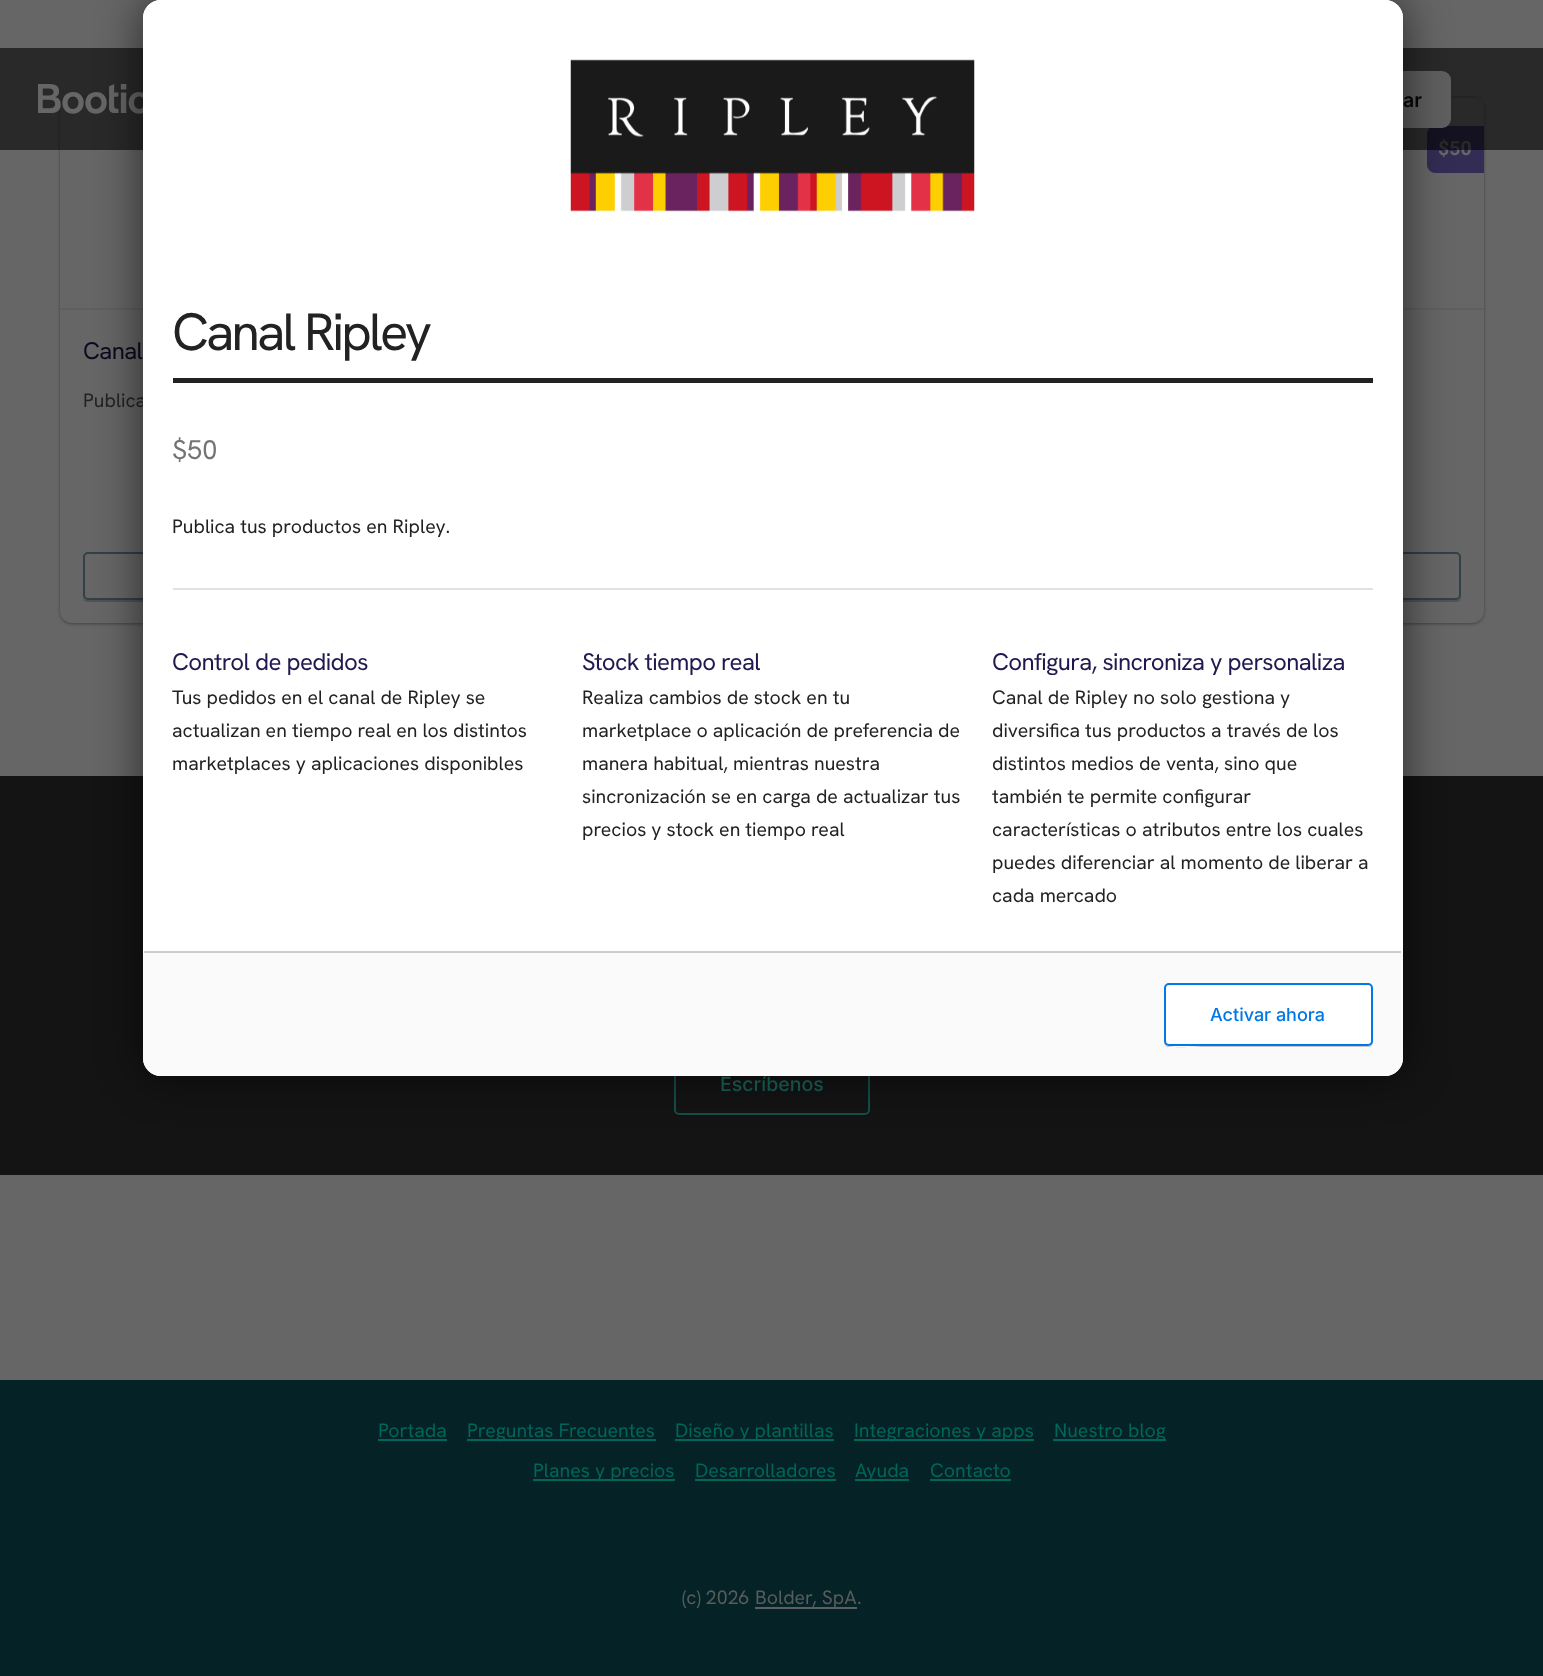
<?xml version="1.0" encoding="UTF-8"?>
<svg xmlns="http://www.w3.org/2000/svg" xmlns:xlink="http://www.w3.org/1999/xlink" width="1543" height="1676">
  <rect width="100%" height="100%" fill="#666666" />
  <rect x="60" y="98" width="1424" height="526" rx="12" fill="#424248" filter="blur(1.5px)" />
  <rect x="60" y="96" width="1424" height="527" rx="12" fill="#666666" />
  <rect x="66" y="96" width="1412" height="2" fill="#5a5a5e" />
  <path d="M 60 108 v 201 h 1424 v -201 c 0 -5 -4 -9 -9 -10 h -1407 c -5 1 -8 5 -8 10 z" fill="#666666" />
  <rect x="60" y="308" width="1424" height="2" fill="#5f5f5f" />
  <path d="M 1435 126 h 49 v 47 h -49 c -4 0 -8 -4 -8 -8 v -31 c 0 -4 4 -8 8 -8 z" fill="#332c54" />
  <path d="M 83 598 c 0 2 2 4 5 4 h 1368 c 3 0 5 -2 5 -5 v -1 c 0 2 -2 4 -5 4 h -1369 c -2 0 -3 -1 -4 -2 z" fill="#525252" />
  <rect x="84" y="553" width="1376" height="46" rx="4" fill="none" stroke="#324047" stroke-width="2" />
  <rect y="776" width="1543" height="399" fill="#141414" />
  <path d="M 674 1112 c 1 2 3 4 5 4 h 186 c 3 0 5 -2 5 -5 v -1 c 0 2 -2 4 -4 4 h -188 c -2 0 -3 0 -4 -2 z" fill="#101010" />
  <rect x="675" y="1053" width="194" height="61" rx="4" fill="none" stroke="#145048" stroke-width="2" />
  <rect y="1380" width="1543" height="296" fill="#052226" />
  <rect x="378" y="1439" width="69" height="2" fill="#00665a" />
  <rect x="467" y="1439" width="189" height="2" fill="#00665a" />
  <rect x="675" y="1439" width="159" height="2" fill="#00665a" />
  <rect x="854" y="1439" width="180" height="2" fill="#00665a" />
  <rect x="1053" y="1439" width="113" height="2" fill="#00665a" />
  <rect x="533" y="1479" width="142" height="2" fill="#00665a" />
  <rect x="695" y="1479" width="141" height="2" fill="#00665a" />
  <rect x="855" y="1479" width="54" height="2" fill="#00665a" />
  <rect x="930" y="1479" width="81" height="2" fill="#00665a" />
  <rect x="755" y="1607" width="102" height="2" fill="#5c5f60" />
  <text x="1438" y="155" style="font-family: Roboto; font-size: 19.5px; font-weight: bold; fill: #666666">$50</text>
  <rect y="48" width="1543" height="102" fill="#000000" fill-opacity="0.6" />
  <rect x="1317" y="72" width="133" height="55" rx="8" fill="#5f5f5f" stroke="#5f5f5f" stroke-width="2" />
  <text x="1403" y="107" style="font-family: Inter; font-size: 19.5px; font-weight: 600; fill: #070707">ar</text>
  <image x="38" y="84" width="105" height="30" xlink:href="image1.png" />
  <text x="83" y="359" style="font-family: Hanken Grotesk; font-size: 24px; letter-spacing: -0.6px; fill: #0e0920">Canal</text>
  <text x="83" y="407" style="font-family: Hanken Grotesk; font-size: 19.5px; fill: #222222">Publica</text>
  <rect x="143" width="1260" height="1076" rx="18" fill="#000000" fill-opacity="0.6" filter="blur(22.5px)" />
  <rect x="143" width="1260" height="1076" rx="18" fill="#ffffff" />
  <path d="M 161 0 h 1224 c 10 0 18 8 18 18 v 252 h -1260 v -252 c 0 -10 8 -18 18 -18 z" fill="#ffffff" />
  <image x="570" y="59" width="405" height="153" xlink:href="image2.png" />
  <rect x="173" y="378" width="1200" height="5" fill="#222222" />
  <text x="172" y="350" style="font-family: Hanken Grotesk; font-size: 52.5px; letter-spacing: -3px; fill: #222222">Canal Ripley</text>
  <text x="172" y="459" style="font-family: Hanken Grotesk; font-size: 27px; fill: #747474">$50</text>
  <text x="172" y="533" style="font-family: Hanken Grotesk; font-size: 19.5px; fill: #222222">Publica tus productos en Ripley.</text>
  <rect x="173" y="588" width="1200" height="2" fill="#e1e1e1" />
  <text x="172" y="670" style="font-family: Hanken Grotesk; font-size: 24px; letter-spacing: -0.6px; fill: #22174f">Control de pedidos</text>
  <text x="172" y="704" style="font-family: Hanken Grotesk; font-size: 19.5px; fill: #222222">Tus pedidos en el canal de Ripley se</text>
  <text x="172" y="737" style="font-family: Hanken Grotesk; font-size: 19.5px; fill: #222222">actualizan en tiempo real en los distintos</text>
  <text x="172" y="770" style="font-family: Hanken Grotesk; font-size: 19.5px; fill: #222222">marketplaces y aplicaciones disponibles</text>
  <text x="582" y="670" style="font-family: Hanken Grotesk; font-size: 24px; letter-spacing: -0.6px; fill: #22174f">Stock tiempo real</text>
  <text x="582" y="704" style="font-family: Hanken Grotesk; font-size: 19.5px; fill: #222222">Realiza cambios de stock en tu</text>
  <text x="582" y="737" style="font-family: Hanken Grotesk; font-size: 19.5px; fill: #222222">marketplace o aplicación de preferencia de</text>
  <text x="582" y="770" style="font-family: Hanken Grotesk; font-size: 19.5px; fill: #222222">manera habitual, mientras nuestra</text>
  <text x="582" y="803" style="font-family: Hanken Grotesk; font-size: 19.5px; fill: #222222">sincronización se en carga de actualizar tus</text>
  <text x="582" y="836" style="font-family: Hanken Grotesk; font-size: 19.5px; fill: #222222">precios y stock en tiempo real</text>
  <text x="992" y="670" style="font-family: Hanken Grotesk; font-size: 24px; letter-spacing: -0.6px; fill: #22174f">Configura, sincroniza y personaliza</text>
  <text x="992" y="704" style="font-family: Hanken Grotesk; font-size: 19.5px; fill: #222222">Canal de Ripley no solo gestiona y</text>
  <text x="992" y="737" style="font-family: Hanken Grotesk; font-size: 19.5px; fill: #222222">diversifica tus productos a través de los</text>
  <text x="992" y="770" style="font-family: Hanken Grotesk; font-size: 19.5px; fill: #222222">distintos medios de venta, sino que</text>
  <text x="992" y="803" style="font-family: Hanken Grotesk; font-size: 19.5px; fill: #222222">también te permite configurar</text>
  <text x="992" y="836" style="font-family: Hanken Grotesk; font-size: 19.5px; fill: #222222">características o atributos entre los cuales</text>
  <text x="992" y="869" style="font-family: Hanken Grotesk; font-size: 19.5px; fill: #222222">puedes diferenciar al momento de liberar a</text>
  <text x="992" y="902" style="font-family: Hanken Grotesk; font-size: 19.5px; fill: #222222">cada mercado</text>
  <path d="M 146 951 h 1254 c 1.5 0 3 1.5 3 3 v 104 c 0 10 -8 18 -18 18 h -1224 c -10 0 -18 -8 -18 -18 v -104 c 0 -1.5 1.5 -3 3 -3 z" fill="#fafafa" />
  <rect x="144" y="951" width="1257" height="2" fill="#cccccc" />
  <path d="M 1164 1041 v 1 c 0 3 2 5 5 5 h 199 c 3 0 5 -2 5 -5 v -53 l -1 -2 v 45 c 0 3 3 13 -4 14 h -166 c -6 0 -38 5 -38 -5 z" fill="#c8c8c8" />
  <rect x="1165" y="984" width="207" height="61" rx="4" fill="#ffffff" stroke="#0078e7" stroke-width="2" />
  <text x="1210" y="1021" style="font-family: Inter; font-size: 18px; font-weight: 500; fill: #0078e7">Activar ahora</text>
  <text x="720" y="1091" style="font-family: Inter; font-size: 19.5px; font-weight: 500; fill: #145048">Escríbenos</text>
  <text x="378" y="1437" style="font-family: Hanken Grotesk; font-size: 19.5px; fill: #00665a">Portada</text>
  <text x="467" y="1437" style="font-family: Hanken Grotesk; font-size: 19.5px; fill: #00665a">Preguntas Frecuentes</text>
  <text x="675" y="1437" style="font-family: Hanken Grotesk; font-size: 19.5px; fill: #00665a">Diseño y plantillas</text>
  <text x="854" y="1437" style="font-family: Hanken Grotesk; font-size: 19.5px; fill: #00665a">Integraciones y apps</text>
  <text x="1054" y="1437" style="font-family: Hanken Grotesk; font-size: 19.5px; fill: #00665a">Nuestro blog</text>
  <text x="533" y="1477" style="font-family: Hanken Grotesk; font-size: 19.5px; fill: #00665a">Planes y precios</text>
  <text x="695" y="1477" style="font-family: Hanken Grotesk; font-size: 19.5px; fill: #00665a">Desarrolladores</text>
  <text x="855" y="1477" style="font-family: Hanken Grotesk; font-size: 19.5px; fill: #00665a">Ayuda</text>
  <text x="930" y="1477" style="font-family: Hanken Grotesk; font-size: 19.5px; fill: #00665a">Contacto</text>
  <text x="682" y="1604" style="font-family: Hanken Grotesk; font-size: 19.5px; fill: #585c5d">(c) 2026</text>
  <text x="755" y="1604" style="font-family: Hanken Grotesk; font-size: 19.5px; fill: #585c5d">Bolder, SpA</text>
  <text x="857" y="1604" style="font-family: Hanken Grotesk; font-size: 19.5px; fill: #585c5d">.</text>
</svg>
